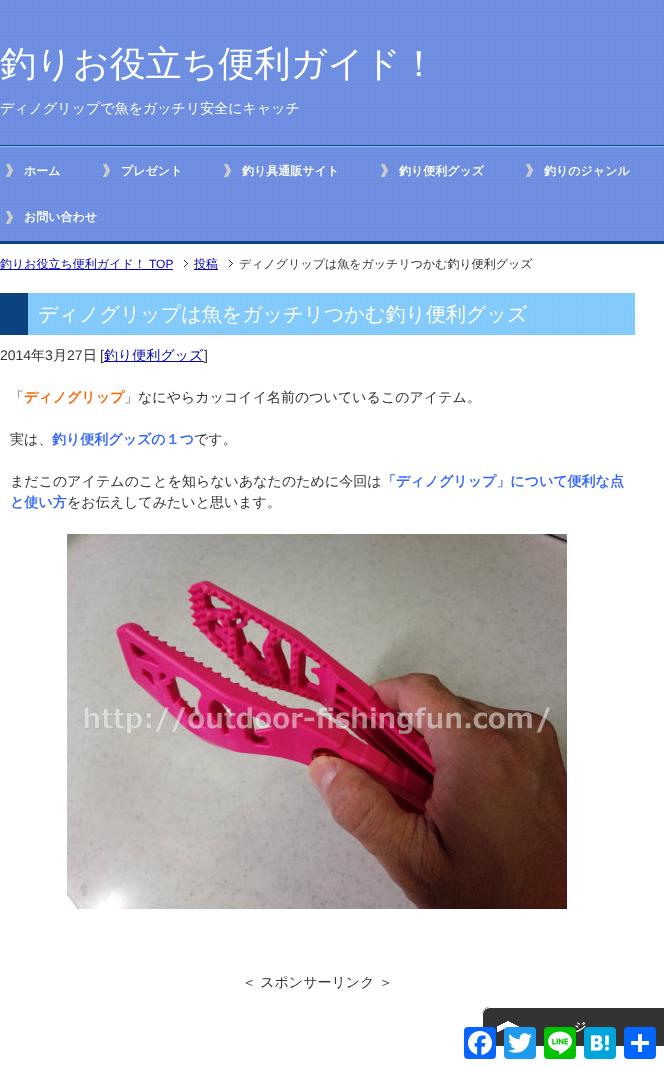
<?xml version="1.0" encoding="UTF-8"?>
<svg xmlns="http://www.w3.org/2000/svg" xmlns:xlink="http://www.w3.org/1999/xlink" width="664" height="1067">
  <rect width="100%" height="100%" fill="#6c8de0" />
  <image x="1" y="1" width="661" height="238" xlink:href="image1.png" />
  <rect y="145" width="664" height="1" fill="#0d4280" />
  <rect y="146" width="664" height="1" fill="#83cafc" />
  <rect y="241" width="664" height="3" fill="#0d4280" />
  <image x="6" y="164" width="8" height="13" xlink:href="image2.png" />
  <image x="103" y="164" width="8" height="13" xlink:href="image3.png" />
  <image x="224" y="164" width="8" height="13" xlink:href="image4.png" />
  <image x="381" y="164" width="8" height="13" xlink:href="image2.png" />
  <image x="526" y="164" width="8" height="13" xlink:href="image3.png" />
  <image x="6" y="211" width="8" height="13" xlink:href="image5.png" />
  <rect y="244" width="664" height="823" fill="#ffffff" />
  <rect y="269" width="173" height="1" fill="#0000bb" />
  <image x="184" y="260" width="4" height="7" xlink:href="image6.png" />
  <rect x="194" y="269" width="24" height="1" fill="#0000bb" />
  <image x="229" y="260" width="4" height="7" xlink:href="image6.png" />
  <rect x="28" y="293" width="607" height="42" fill="#83cafc" />
  <image x="29" y="294" width="604" height="40" xlink:href="image7.png" />
  <rect y="293" width="28" height="42" fill="#0d4280" />
  <image x="67" y="534" width="500" height="375" xlink:href="image8.png" />
  <path d="M 490 1007 h 174 v 40 h -174 c -4.5 0 -8 -3.5 -8 -8 v -24 c 0 -4.5 3.5 -8 8 -8 z" fill="#333333" />
  <image x="497" y="1021" width="22" height="11" xlink:href="image9.png" />
  <path d="M 490 1007 h 174 v 40 h -174 c -4 0 -8 -4 -8 -8 v -24 c 0 -4 4 -8 8 -8 z m 0 1 h 174 v 38 h -174 c -4 0 -7 -3 -7 -7 v -24 c 0 -4 3 -7 7 -7 z" fill="#ffffff" fill-rule="evenodd" />
  <rect x="464" y="1027" width="32" height="32" rx="4" fill="#0866ff" />
  <image x="468" y="1031" width="24" height="24" xlink:href="image10.png" />
  <rect x="504" y="1027" width="32" height="32" rx="4" fill="#1d9bf0" />
  <image x="508" y="1033" width="24" height="20" xlink:href="image11.png" />
  <rect x="624" y="1027" width="32" height="32" rx="4" fill="#0166ff" />
  <rect x="638" y="1034" width="4" height="18" fill="#ffffff" />
  <rect x="631" y="1041" width="18" height="4" fill="#ffffff" />
  <text x="0" y="76" style="font-family: WenQuanYi Zen Hei; font-size: 36px; font-weight: 500; fill: #ffffff">釣りお役立ち便利ガイド！</text>
  <text x="0" y="113" style="font-family: WenQuanYi Zen Hei; font-size: 14px; font-weight: 500; fill: #ffffff">ディノグリップで魚をガッチリ安全にキャッチ</text>
  <text x="24" y="175" style="font-family: WenQuanYi Zen Hei; font-size: 12px; font-weight: bold; fill: #ffffff">ホーム</text>
  <text x="121" y="175" style="font-family: WenQuanYi Zen Hei; font-size: 12px; font-weight: bold; fill: #ffffff">プレゼント</text>
  <text x="242" y="175" style="font-family: WenQuanYi Zen Hei; font-size: 12px; font-weight: bold; fill: #ffffff">釣り具通販サイト</text>
  <text x="399" y="175" style="font-family: WenQuanYi Zen Hei; font-size: 12px; font-weight: bold; fill: #ffffff">釣り便利グッズ</text>
  <text x="544" y="175" style="font-family: WenQuanYi Zen Hei; font-size: 12px; font-weight: bold; fill: #ffffff">釣りのジャンル</text>
  <text x="24" y="221" style="font-family: WenQuanYi Zen Hei; font-size: 12px; font-weight: bold; fill: #ffffff">お問い合わせ</text>
  <text x="0" y="268" style="font-family: WenQuanYi Zen Hei; font-size: 12px; font-weight: 500; fill: #0000bb">釣りお役立ち便利ガイド！</text>
  <text x="149" y="268" style="font-family: Liberation Sans; font-size: 12px; fill: #0000bb">TOP</text>
  <text x="194" y="268" style="font-family: WenQuanYi Zen Hei; font-size: 12px; font-weight: 500; fill: #0000bb">投稿</text>
  <text x="239" y="268" style="font-family: WenQuanYi Zen Hei; font-size: 12px; font-weight: 500; fill: #333333">ディノグリップは魚をガッチリつかむ釣り便利グッズ</text>
  <text x="38" y="321" style="font-family: WenQuanYi Zen Hei; font-size: 20px; font-weight: 500; fill: #ffffff">ディノグリップは魚をガッチリつかむ釣り便利グッズ</text>
  <text x="0" y="360" style="font-family: Liberation Sans; font-size: 14px; fill: #333333">2014</text>
  <text x="31" y="360" style="font-family: WenQuanYi Zen Hei; font-size: 14px; font-weight: 500; fill: #333333">年</text>
  <text x="45" y="360" style="font-family: Liberation Sans; font-size: 14px; fill: #333333">3</text>
  <text x="53" y="360" style="font-family: WenQuanYi Zen Hei; font-size: 14px; font-weight: 500; fill: #333333">月</text>
  <text x="67" y="360" style="font-family: Liberation Sans; font-size: 14px; fill: #333333">27</text>
  <text x="83" y="360" style="font-family: WenQuanYi Zen Hei; font-size: 14px; font-weight: 500; fill: #333333">日</text>
  <text x="100" y="360" style="font-family: Liberation Sans; font-size: 14px; fill: #333333">[</text>
  <rect x="104" y="361" width="100" height="1" fill="#0000bb" />
  <text x="104" y="360" style="font-family: WenQuanYi Zen Hei; font-size: 14px; font-weight: 500; fill: #0000bb">釣り便利グッズ</text>
  <text x="204" y="360" style="font-family: Liberation Sans; font-size: 14px; fill: #333333">]</text>
  <text x="10" y="402" style="font-family: WenQuanYi Zen Hei; font-size: 14px; font-weight: 500; fill: #333333">「</text>
  <text x="24" y="402" style="font-family: WenQuanYi Zen Hei; font-size: 14px; font-weight: bold; fill: #ff6600">ディノグリップ</text>
  <text x="124" y="402" style="font-family: WenQuanYi Zen Hei; font-size: 14px; font-weight: 500; fill: #333333">」なにやらカッコイイ名前のついているこのアイテム。</text>
  <text x="10" y="444" style="font-family: WenQuanYi Zen Hei; font-size: 14px; font-weight: 500; fill: #333333">実は、</text>
  <text x="52" y="444" style="font-family: WenQuanYi Zen Hei; font-size: 14px; font-weight: bold; fill: #3366ff">釣り便利グッズの１つ</text>
  <text x="194" y="444" style="font-family: WenQuanYi Zen Hei; font-size: 14px; font-weight: 500; fill: #333333">です。</text>
  <text x="10" y="486" style="font-family: WenQuanYi Zen Hei; font-size: 14px; font-weight: 500; fill: #333333">まだこのアイテムのことを知らないあなたのために今回は</text>
  <text x="382" y="486" style="font-family: WenQuanYi Zen Hei; font-size: 14px; font-weight: bold; fill: #3366ff">「ディノグリップ」について便利な点</text>
  <text x="10" y="507" style="font-family: WenQuanYi Zen Hei; font-size: 14px; font-weight: bold; fill: #3366ff">と使い方</text>
  <text x="67" y="507" style="font-family: WenQuanYi Zen Hei; font-size: 14px; font-weight: 500; fill: #333333">をお伝えしてみたいと思います。</text>
  <text x="242" y="987" style="font-family: WenQuanYi Zen Hei; font-size: 14px; font-weight: 500; fill: #333333">＜ スポンサーリンク ＞</text>
  <text x="574" y="1031" style="font-family: WenQuanYi Zen Hei; font-size: 12px; font-weight: bold; fill: #ffffff">ジ</text>
  <rect x="544" y="1027" width="32" height="32" rx="4" fill="#00c300" />
  <image x="548" y="1031" width="24" height="24" xlink:href="image12.png" />
  <rect x="584" y="1027" width="32" height="32" rx="4" fill="#00a6db" />
  <image x="590" y="1035" width="19" height="16" xlink:href="image13.png" />
</svg>
